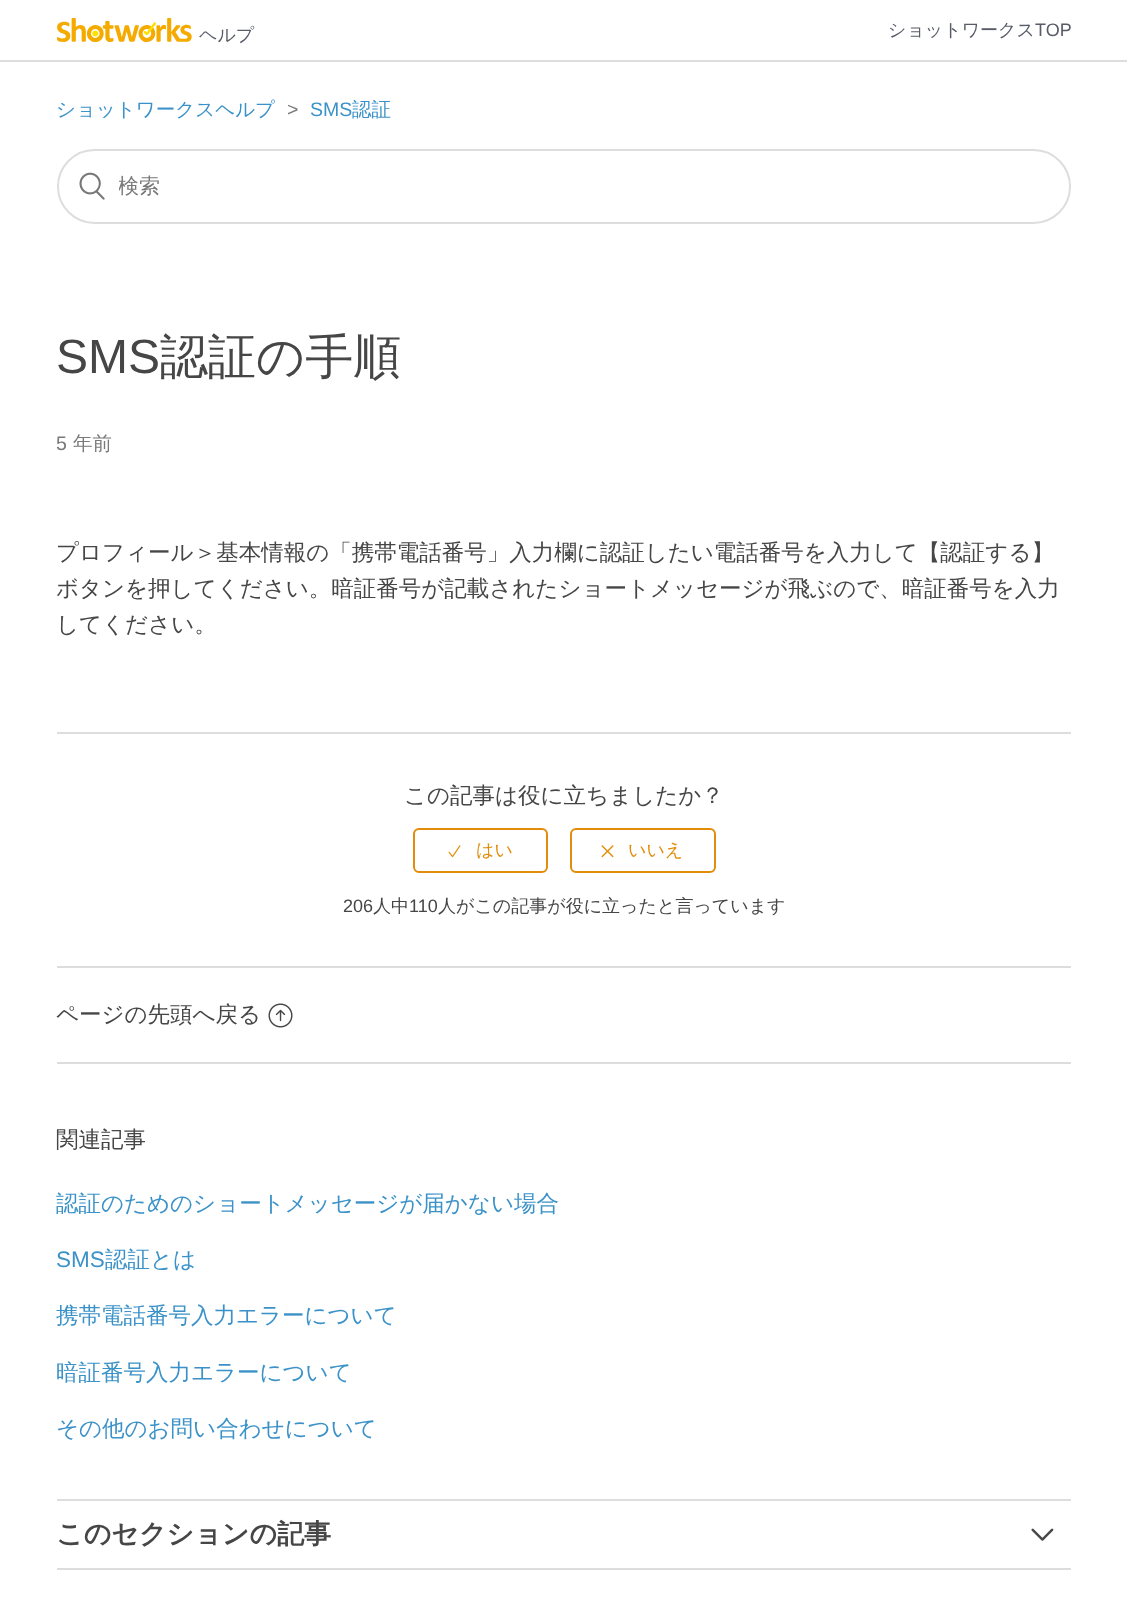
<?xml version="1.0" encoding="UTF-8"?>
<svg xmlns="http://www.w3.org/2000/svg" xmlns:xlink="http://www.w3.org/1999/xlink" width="1127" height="1624">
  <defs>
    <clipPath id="clip1"><rect x="119" y="174" width="915" height="27" /></clipPath>
  </defs>
  <rect width="100%" height="100%" fill="#ffffff" />
  <image x="57" y="18" width="135" height="24" xlink:href="image1.png" />
  <rect y="60" width="1127" height="2" fill="#dddddd" />
  <rect x="58" y="150" width="1012" height="73" rx="36.5" fill="none" stroke="#dddddd" stroke-width="2" />
  <image x="79" y="172" width="26" height="28" xlink:href="image2.png" />
  <rect x="57" y="732" width="1014" height="2" fill="#dddddd" />
  <rect x="414" y="829" width="133" height="43" rx="5" fill="none" stroke="#e28c0a" stroke-width="2" />
  <image x="448" y="845" width="13" height="13" xlink:href="image3.png" />
  <rect x="571" y="829" width="144" height="43" rx="5" fill="none" stroke="#e28c0a" stroke-width="2" />
  <image x="601" y="845" width="13" height="13" xlink:href="image4.png" />
  <rect x="57" y="966" width="1014" height="2" fill="#dddddd" />
  <image x="268" y="1003" width="25" height="25" xlink:href="image5.png" />
  <rect x="57" y="1062" width="1014" height="2" fill="#dddddd" />
  <rect x="57" y="1499" width="1014" height="2" fill="#dddddd" />
  <rect x="57" y="1568" width="1014" height="2" fill="#dddddd" />
  <image x="1031" y="1528" width="23" height="13" xlink:href="image6.png" />
  <text x="199" y="41" style="font-family: WenQuanYi Zen Hei; font-size: 18px; font-weight: 500; fill: #585c67">ヘルプ</text>
  <text x="888" y="36" style="font-family: WenQuanYi Zen Hei; font-size: 18px; font-weight: 500; fill: #585c67">ショットワークス</text>
  <text x="1035" y="36" style="font-family: Liberation Sans; font-size: 18px; fill: #585c67">TOP</text>
  <text x="56" y="116" style="font-family: WenQuanYi Zen Hei; font-size: 19.5px; font-weight: 500; fill: #3b92c8">ショットワークスヘルプ</text>
  <text x="287" y="116" style="font-family: Liberation Sans; font-size: 19.5px; fill: #797979">&gt;</text>
  <text x="310" y="116" style="font-family: Liberation Sans; font-size: 19.5px; fill: #3b92c8">SMS</text>
  <text x="352" y="116" style="font-family: WenQuanYi Zen Hei; font-size: 19.5px; font-weight: 500; fill: #3b92c8">認証</text>
  <g clip-path="url(#clip1)">
    <text x="118" y="193" style="font-family: WenQuanYi Zen Hei; font-size: 21px; font-weight: 500; fill: #797979">検索</text>
  </g>
  <text x="56" y="373" style="font-family: Liberation Sans; font-size: 48px; fill: #464646">SMS</text>
  <text x="160" y="373" style="font-family: WenQuanYi Zen Hei; font-size: 48px; font-weight: 500; fill: #464646">認証の手順</text>
  <text x="56" y="450" style="font-family: Liberation Sans; font-size: 19.5px; fill: #797979">5</text>
  <text x="73" y="450" style="font-family: WenQuanYi Zen Hei; font-size: 19.5px; font-weight: 500; fill: #797979">年前</text>
  <text x="56" y="560" style="font-family: WenQuanYi Zen Hei; font-size: 22.5px; font-weight: 500; fill: #464646">プロフィール＞基本情報の「携帯電話番号」入力欄に認証したい電話番号を入力して【認証する】</text>
  <text x="56" y="596" style="font-family: WenQuanYi Zen Hei; font-size: 22.5px; font-weight: 500; fill: #464646">ボタンを押してください。暗証番号が記載されたショートメッセージが飛ぶので、暗証番号を入力</text>
  <text x="56" y="632" style="font-family: WenQuanYi Zen Hei; font-size: 22.5px; font-weight: 500; fill: #464646">してください。</text>
  <text x="404" y="803" style="font-family: WenQuanYi Zen Hei; font-size: 22.5px; font-weight: 500; fill: #464646">この記事は役に立ちましたか？</text>
  <text x="476" y="856" style="font-family: WenQuanYi Zen Hei; font-size: 18px; font-weight: 500; fill: #e28c0a">はい</text>
  <text x="628" y="856" style="font-family: WenQuanYi Zen Hei; font-size: 18px; font-weight: 500; fill: #e28c0a">いいえ</text>
  <text x="343" y="912" style="font-family: Liberation Sans; font-size: 18px; fill: #464646">206</text>
  <text x="373" y="912" style="font-family: WenQuanYi Zen Hei; font-size: 18px; font-weight: 500; fill: #464646">人中</text>
  <text x="409" y="912" style="font-family: Liberation Sans; font-size: 18px; fill: #464646">110</text>
  <text x="438" y="912" style="font-family: WenQuanYi Zen Hei; font-size: 18px; font-weight: 500; fill: #464646">人がこの記事が役に立ったと言っています</text>
  <text x="56" y="1022" style="font-family: WenQuanYi Zen Hei; font-size: 22.5px; font-weight: 500; fill: #464646">ページの先頭へ戻る</text>
  <text x="56" y="1147" style="font-family: WenQuanYi Zen Hei; font-size: 22.5px; font-weight: 500; fill: #464646">関連記事</text>
  <text x="56" y="1211" style="font-family: WenQuanYi Zen Hei; font-size: 22.5px; font-weight: 500; fill: #3b92c8">認証のためのショートメッセージが届かない場合</text>
  <text x="56" y="1267" style="font-family: Liberation Sans; font-size: 22.5px; fill: #3b92c8">SMS</text>
  <text x="105" y="1267" style="font-family: WenQuanYi Zen Hei; font-size: 22.5px; font-weight: 500; fill: #3b92c8">認証とは</text>
  <text x="56" y="1323" style="font-family: WenQuanYi Zen Hei; font-size: 22.5px; font-weight: 500; fill: #3b92c8">携帯電話番号入力エラーについて</text>
  <text x="56" y="1380" style="font-family: WenQuanYi Zen Hei; font-size: 22.5px; font-weight: 500; fill: #3b92c8">暗証番号入力エラーについて</text>
  <text x="56" y="1436" style="font-family: WenQuanYi Zen Hei; font-size: 22.5px; font-weight: 500; fill: #3b92c8">その他のお問い合わせについて</text>
  <text x="56" y="1543" style="font-family: WenQuanYi Zen Hei; font-size: 27px; font-weight: bold; fill: #464646">このセクションの記事</text>
</svg>
